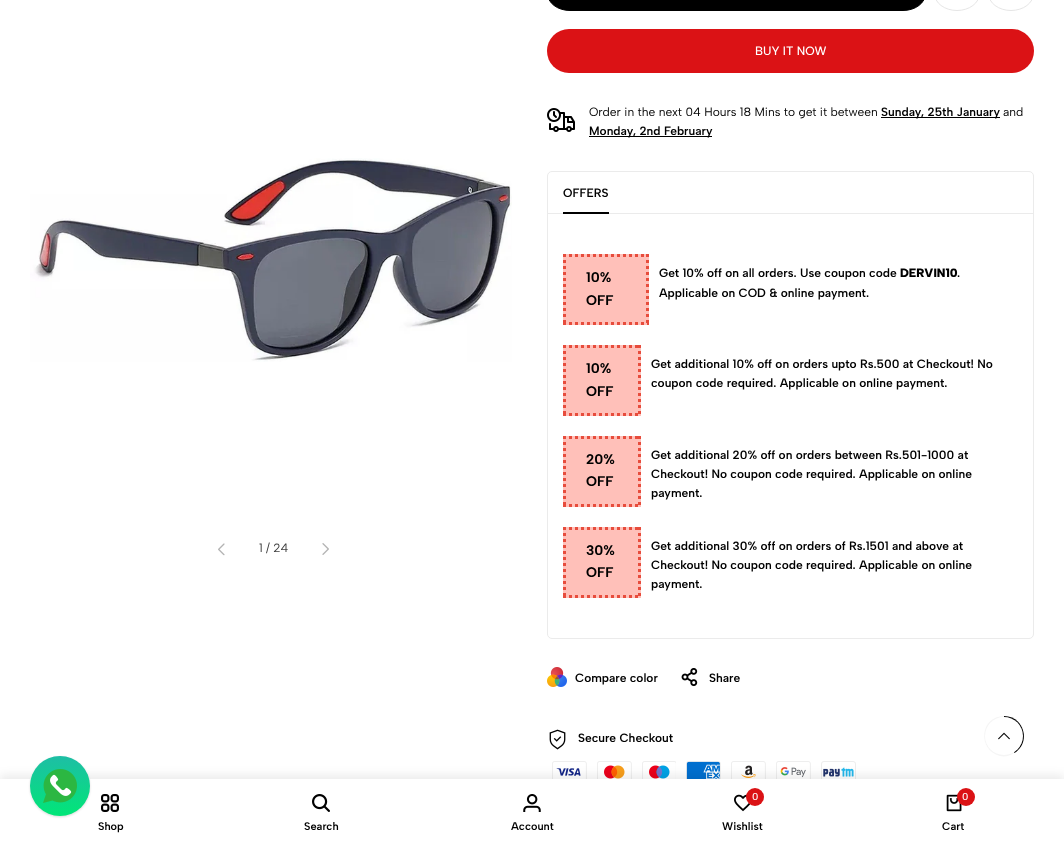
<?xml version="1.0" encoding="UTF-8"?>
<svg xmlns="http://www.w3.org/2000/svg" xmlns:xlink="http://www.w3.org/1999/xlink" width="1064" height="846">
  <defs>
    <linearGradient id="g1" gradientUnits="userSpaceOnUse" x1="60" y1="756" x2="60" y2="816"><stop offset="0" stop-color="#1ebea5" /><stop offset="1" stop-color="#01e677" /></linearGradient>
  </defs>
  <rect width="100%" height="100%" fill="#ffffff" />
  <image x="30" y="158" width="482" height="204" xlink:href="image1.png" />
  <image x="218" y="543" width="7" height="13" xlink:href="image2.png" />
  <image x="322" y="543" width="7" height="12" xlink:href="image3.png" />
  <rect x="547.5" y="-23.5" width="378" height="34" rx="22.5" fill="#000000" stroke="#000000" />
  <rect x="934.5" y="-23.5" width="45" height="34" rx="22.5" fill="none" stroke="#e6e6e6" />
  <rect x="988.5" y="-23.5" width="45" height="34" rx="22.5" fill="none" stroke="#e6e6e6" />
  <rect x="547" y="29" width="487" height="44" rx="22" fill="#db1215" />
  <image x="547" y="108" width="28" height="24" xlink:href="image4.png" />
  <rect x="881" y="117" width="119" height="1" fill="#000000" />
  <rect x="589" y="136" width="123" height="1" fill="#000000" />
  <rect x="547.5" y="171.5" width="486" height="467" rx="4.5" fill="none" stroke="#ebebeb" />
  <rect x="548" y="213" width="485" height="1" fill="#ebebeb" />
  <rect x="563" y="212" width="46" height="2" fill="#000000" />
  <rect x="563" y="254" width="86" height="71" fill="#ffc0b9" />
  <path d="M 563 255.5 h 86" fill="none" stroke="#e74c3c" stroke-width="3" stroke-dasharray="3 3" />
  <path d="M 647.5 254 v 71" fill="none" stroke="#e74c3c" stroke-width="3" stroke-dasharray="3 3" />
  <path d="M 563 323.5 h 86" fill="none" stroke="#e74c3c" stroke-width="3" stroke-dasharray="3 3" />
  <path d="M 564.5 254 v 71" fill="none" stroke="#e74c3c" stroke-width="3" stroke-dasharray="3 3" />
  <rect x="563" y="345" width="78" height="71" fill="#ffc0b9" />
  <path d="M 563 346.5 h 78" fill="none" stroke="#e74c3c" stroke-width="3" stroke-dasharray="3 3" />
  <path d="M 639.5 345 v 71" fill="none" stroke="#e74c3c" stroke-width="3" stroke-dasharray="3 3" />
  <path d="M 563 414.5 h 78" fill="none" stroke="#e74c3c" stroke-width="3" stroke-dasharray="3 3" />
  <path d="M 564.5 345 v 71" fill="none" stroke="#e74c3c" stroke-width="3" stroke-dasharray="3 3" />
  <rect x="563" y="436" width="78" height="71" fill="#ffc0b9" />
  <path d="M 563 437.5 h 78" fill="none" stroke="#e74c3c" stroke-width="3" stroke-dasharray="3 3" />
  <path d="M 639.5 436 v 71" fill="none" stroke="#e74c3c" stroke-width="3" stroke-dasharray="3 3" />
  <path d="M 563 505.5 h 78" fill="none" stroke="#e74c3c" stroke-width="3" stroke-dasharray="3 3" />
  <path d="M 564.5 436 v 71" fill="none" stroke="#e74c3c" stroke-width="3" stroke-dasharray="3 3" />
  <rect x="563" y="527" width="78" height="71" fill="#ffc0b9" />
  <path d="M 563 528.5 h 78" fill="none" stroke="#e74c3c" stroke-width="3" stroke-dasharray="3 3" />
  <path d="M 639.5 527 v 71" fill="none" stroke="#e74c3c" stroke-width="3" stroke-dasharray="3 3" />
  <path d="M 563 596.5 h 78" fill="none" stroke="#e74c3c" stroke-width="3" stroke-dasharray="3 3" />
  <path d="M 564.5 527 v 71" fill="none" stroke="#e74c3c" stroke-width="3" stroke-dasharray="3 3" />
  <image x="547" y="667" width="20" height="20" xlink:href="image5.png" />
  <image x="681" y="668" width="17" height="19" xlink:href="image6.png" />
  <image x="549" y="729" width="17" height="21" xlink:href="image7.png" />
  <image x="552" y="761" width="35" height="18" xlink:href="image8.png" />
  <image x="597" y="761" width="35" height="18" xlink:href="image9.png" />
  <image x="642" y="761" width="34" height="18" xlink:href="image10.png" />
  <image x="686" y="761" width="35" height="18" xlink:href="image11.png" />
  <image x="731" y="761" width="35" height="18" xlink:href="image12.png" />
  <image x="776" y="761" width="35" height="18" xlink:href="image13.png" />
  <image x="821" y="761" width="35" height="18" xlink:href="image14.png" />
  <path d="M 1004 736 v -20 c 20 0 27.5 26.5 10.5 37 z" fill="#000000" />
  <path d="M 1004 736 l 10 17 c -4 3 -9 4 -14 3 c -23 -6 -20 -40 4 -40 z" fill="#f5f5f5" />
  <circle cx="1004" cy="736" r="19" fill="#ffffff" />
  <image x="998" y="732" width="12" height="8" xlink:href="image15.png" />
  <rect y="775" width="1064" height="67" fill="#000000" fill-opacity="0.08" filter="blur(5px)" />
  <rect y="779" width="1064" height="67" fill="#ffffff" />
  <rect x="30" y="757" width="60" height="60" rx="30" fill="#000000" fill-opacity="0.15" filter="blur(1px)" />
  <circle cx="60" cy="786" r="30" fill="url(#g1)" />
  <image x="43" y="769" width="34" height="34" xlink:href="image16.png" />
  <image x="101" y="794" width="18" height="18" xlink:href="image17.png" />
  <image x="312" y="794" width="18" height="18" xlink:href="image18.png" />
  <image x="523" y="794" width="18" height="18" xlink:href="image19.png" />
  <image x="734" y="794" width="17" height="18" xlink:href="image20.png" />
  <circle cx="755" cy="797" r="9" fill="#db1215" />
  <image x="946" y="794" width="16" height="18" xlink:href="image21.png" />
  <circle cx="966" cy="797" r="9" fill="#db1215" />
  <text x="259" y="552" style="font-family: Albert Sans; font-size: 12px; fill: #404040">1 / 24</text>
  <text x="755" y="55" style="font-family: Albert Sans; font-size: 12px; font-weight: 500; fill: #ffffff">BUY IT NOW</text>
  <text x="589" y="116" style="font-family: Albert Sans; font-size: 12px; fill: #000000">Order in the next 04 Hours 18 Mins to get it between</text>
  <text x="881" y="116" style="font-family: Albert Sans; font-size: 12px; font-weight: 600; fill: #000000">Sunday, 25th January</text>
  <text x="1003" y="116" style="font-family: Albert Sans; font-size: 12px; fill: #000000">and</text>
  <text x="589" y="135" style="font-family: Albert Sans; font-size: 12px; font-weight: 600; fill: #000000">Monday, 2nd February</text>
  <text x="563" y="197" style="font-family: Albert Sans; font-size: 12px; font-weight: 600; fill: #000000">OFFERS</text>
  <text x="586" y="282" style="font-family: Albert Sans; font-size: 14px; font-weight: bold; fill: #000000">10%</text>
  <text x="586" y="305" style="font-family: Albert Sans; font-size: 14px; font-weight: bold; fill: #000000">OFF</text>
  <text x="659" y="277" style="font-family: Albert Sans; font-size: 12px; font-weight: 600; fill: #000000">Get 10% off on all orders. Use coupon code</text>
  <text x="900" y="277" style="font-family: Albert Sans; font-size: 12px; font-weight: 900; fill: #000000">DERVIN10</text>
  <text x="957" y="277" style="font-family: Albert Sans; font-size: 12px; font-weight: 600; fill: #000000">.</text>
  <text x="659" y="297" style="font-family: Albert Sans; font-size: 12px; font-weight: 600; fill: #000000">Applicable on COD &amp; online payment.</text>
  <text x="586" y="373" style="font-family: Albert Sans; font-size: 14px; font-weight: bold; fill: #000000">10%</text>
  <text x="586" y="396" style="font-family: Albert Sans; font-size: 14px; font-weight: bold; fill: #000000">OFF</text>
  <text x="651" y="368" style="font-family: Albert Sans; font-size: 12px; font-weight: 600; fill: #000000">Get additional 10% off on orders upto Rs.500 at Checkout! No</text>
  <text x="651" y="387" style="font-family: Albert Sans; font-size: 12px; font-weight: 600; fill: #000000">coupon code required. Applicable on online payment.</text>
  <text x="586" y="464" style="font-family: Albert Sans; font-size: 14px; font-weight: bold; fill: #000000">20%</text>
  <text x="586" y="486" style="font-family: Albert Sans; font-size: 14px; font-weight: bold; fill: #000000">OFF</text>
  <text x="651" y="459" style="font-family: Albert Sans; font-size: 12px; font-weight: 600; fill: #000000">Get additional 20% off on orders between Rs.501-1000 at</text>
  <text x="651" y="478" style="font-family: Albert Sans; font-size: 12px; font-weight: 600; fill: #000000">Checkout! No coupon code required. Applicable on online</text>
  <text x="651" y="497" style="font-family: Albert Sans; font-size: 12px; font-weight: 600; fill: #000000">payment.</text>
  <text x="586" y="555" style="font-family: Albert Sans; font-size: 14px; font-weight: bold; fill: #000000">30%</text>
  <text x="586" y="577" style="font-family: Albert Sans; font-size: 14px; font-weight: bold; fill: #000000">OFF</text>
  <text x="651" y="550" style="font-family: Albert Sans; font-size: 12px; font-weight: 600; fill: #000000">Get additional 30% off on orders of Rs.1501 and above at</text>
  <text x="651" y="569" style="font-family: Albert Sans; font-size: 12px; font-weight: 600; fill: #000000">Checkout! No coupon code required. Applicable on online</text>
  <text x="651" y="588" style="font-family: Albert Sans; font-size: 12px; font-weight: 600; fill: #000000">payment.</text>
  <text x="575" y="682" style="font-family: Albert Sans; font-size: 12px; font-weight: 600; fill: #000000">Compare color</text>
  <text x="709" y="682" style="font-family: Albert Sans; font-size: 12px; font-weight: 600; fill: #000000">Share</text>
  <text x="578" y="742" style="font-family: Albert Sans; font-size: 12px; font-weight: 600; fill: #000000">Secure Checkout</text>
  <text x="98" y="830" style="font-family: Albert Sans; font-size: 11px; font-weight: 600; fill: #000000">Shop</text>
  <text x="304" y="830" style="font-family: Albert Sans; font-size: 11px; font-weight: 600; fill: #000000">Search</text>
  <text x="511" y="830" style="font-family: Albert Sans; font-size: 11px; font-weight: 600; fill: #000000">Account</text>
  <text x="752" y="800" style="font-family: Albert Sans; font-size: 10px; font-weight: 500; fill: #ffffff">0</text>
  <text x="722" y="830" style="font-family: Albert Sans; font-size: 11px; font-weight: 600; fill: #000000">Wishlist</text>
  <text x="962" y="800" style="font-family: Albert Sans; font-size: 10px; font-weight: 500; fill: #ffffff">0</text>
  <text x="942" y="830" style="font-family: Albert Sans; font-size: 11px; font-weight: 600; fill: #000000">Cart</text>
</svg>
